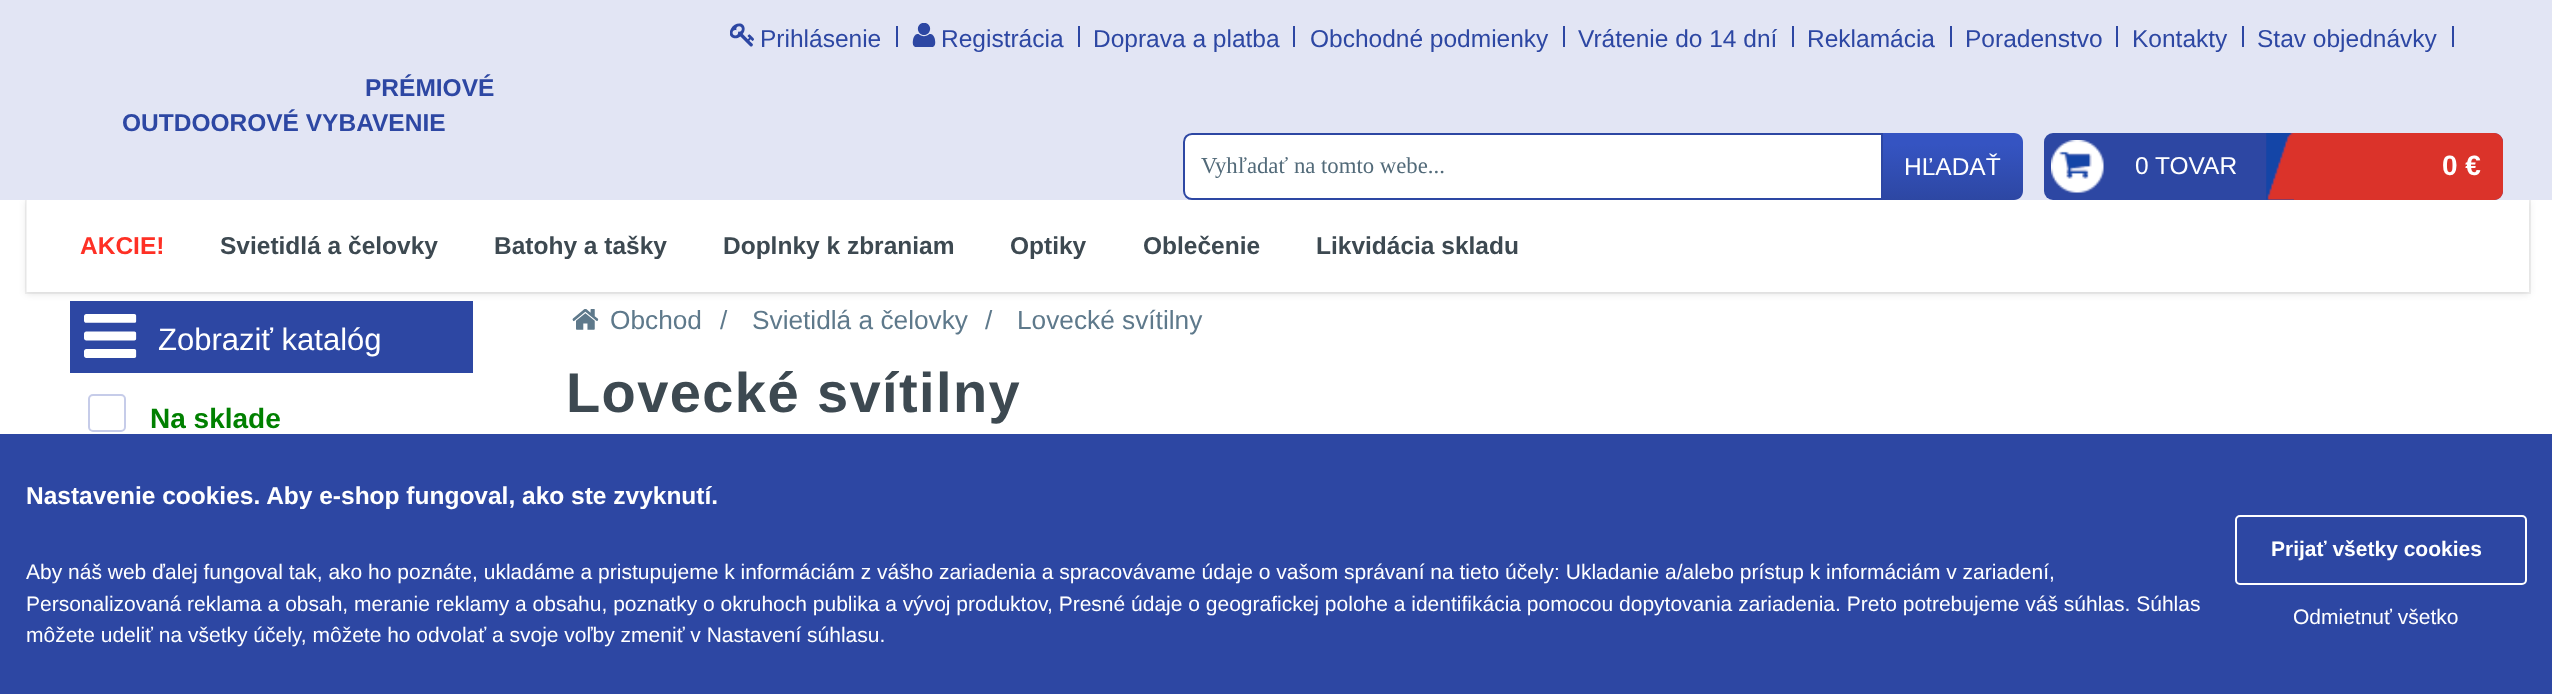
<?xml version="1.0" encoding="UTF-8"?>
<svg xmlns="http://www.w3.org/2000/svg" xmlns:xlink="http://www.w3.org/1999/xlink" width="2552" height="694">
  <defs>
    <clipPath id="clip1"><path d="M 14 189 h 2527 v 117 h -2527 z m 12 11 h 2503 v 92 h -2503 z" clip-rule="evenodd" /></clipPath>
    <linearGradient id="g1" gradientUnits="userSpaceOnUse" x1="1953" y1="200" x2="1953" y2="133"><stop offset="0" stop-color="#2d47a3" /><stop offset="0.83" stop-color="#3554c2" /></linearGradient>
  </defs>
  <rect width="100%" height="100%" fill="#ffffff" />
  <rect x="26" y="199" width="2504" height="94" fill="none" stroke="#f2f2f2" stroke-width="2" />
  <g clip-path="url(#clip1)">
    <rect x="26" y="201" width="2503" height="93" fill="#000000" fill-opacity="0.1" filter="blur(3.5px)" />
  </g>
  <rect width="2552" height="200" fill="#e2e5f4" />
  <image x="730" y="23" width="24" height="24" xlink:href="image1.png" />
  <rect x="896" y="26" width="2" height="21" fill="#2d47a3" />
  <image x="912" y="23" width="24" height="24" xlink:href="image2.png" />
  <rect x="1078" y="26" width="2" height="21" fill="#2d47a3" />
  <rect x="1293" y="26" width="2" height="21" fill="#2d47a3" />
  <rect x="1563" y="26" width="2" height="21" fill="#2d47a3" />
  <rect x="1792" y="26" width="2" height="21" fill="#2d47a3" />
  <rect x="1950" y="26" width="2" height="21" fill="#2d47a3" />
  <rect x="2116" y="26" width="2" height="21" fill="#2d47a3" />
  <rect x="2242" y="26" width="2" height="21" fill="#2d47a3" />
  <rect x="2452" y="26" width="2" height="21" fill="#2d47a3" />
  <path d="M 1192 134 h 690 v 65 h -690 c -4.5 0 -8 -3.5 -8 -8 v -49 c 0 -4.5 3.5 -8 8 -8 z" fill="#ffffff" stroke="#2d47a3" stroke-width="2" />
  <path d="M 1883 133 h 131 c 5 0 9 4 9 9 v 49 c 0 5 -4 9 -9 9 h -131 z" fill="url(#g1)" />
  <rect x="2044" y="133" width="459" height="67" rx="9" fill="#2d47a3" />
  <image x="2051" y="140" width="53" height="53" xlink:href="image3.png" />
  <image x="2266" y="133" width="28" height="67" xlink:href="image4.png" />
  <path d="M 2294 133 h 200 c 5 0 9 4 9 9 v 49 c 0 5 -4 9 -9 9 h -200 z" fill="#db332a" />
  <rect x="70" y="301" width="403" height="72" fill="#2d47a3" />
  <image x="84" y="314" width="53" height="44" xlink:href="image5.png" />
  <rect x="89" y="395" width="36" height="36" rx="4" fill="none" stroke="#c6cce9" stroke-width="2" />
  <image x="572" y="309" width="27" height="21" xlink:href="image6.png" />
  <rect y="434" width="2552" height="260" fill="#2d47a3" />
  <rect x="2236" y="516" width="290" height="68" rx="4" fill="none" stroke="#ffffff" stroke-width="2" />
  <text x="760" y="47" style="font-family: Liberation Sans; font-size: 24.5px; fill: #2d47a3">Prihlásenie</text>
  <text x="941" y="47" style="font-family: Liberation Sans; font-size: 24.5px; fill: #2d47a3">Registrácia</text>
  <text x="1093" y="47" style="font-family: Liberation Sans; font-size: 24.5px; fill: #2d47a3">Doprava a platba</text>
  <text x="1310" y="47" style="font-family: Liberation Sans; font-size: 24.5px; fill: #2d47a3">Obchodné podmienky</text>
  <text x="1578" y="47" style="font-family: Liberation Sans; font-size: 24.5px; fill: #2d47a3">Vrátenie do 14 dní</text>
  <text x="1807" y="47" style="font-family: Liberation Sans; font-size: 24.5px; fill: #2d47a3">Reklamácia</text>
  <text x="1965" y="47" style="font-family: Liberation Sans; font-size: 24.5px; fill: #2d47a3">Poradenstvo</text>
  <text x="2132" y="47" style="font-family: Liberation Sans; font-size: 24.5px; fill: #2d47a3">Kontakty</text>
  <text x="2257" y="47" style="font-family: Liberation Sans; font-size: 24.5px; fill: #2d47a3">Stav objednávky</text>
  <text x="365" y="96" style="font-family: Liberation Sans; font-size: 24.5px; font-weight: bold; fill: #2d47a3">PRÉMIOVÉ</text>
  <text x="122" y="131" style="font-family: Liberation Sans; font-size: 24.5px; font-weight: bold; fill: #2d47a3">OUTDOOROVÉ VYBAVENIE</text>
  <text x="1201" y="173" style="font-family: Liberation Serif; font-size: 22.75px; fill: #526a79">Vyhľadať na tomto webe...</text>
  <text x="1904" y="175" style="font-family: Liberation Sans; font-size: 24.5px; fill: #ffffff">HĽADAŤ</text>
  <text x="2135" y="174" style="font-family: Liberation Sans; font-size: 24.5px; fill: #ffffff">0 TOVAR</text>
  <text x="2442" y="175" style="font-family: Liberation Sans; font-size: 28px; font-weight: bold; fill: #ffffff">0 €</text>
  <text x="80" y="254" style="font-family: Liberation Sans; font-size: 24.5px; font-weight: bold; fill: #fe3025">AKCIE!</text>
  <text x="220" y="254" style="font-family: Liberation Sans; font-size: 24.5px; font-weight: bold; fill: #3d4951">Svietidlá a čelovky</text>
  <text x="494" y="254" style="font-family: Liberation Sans; font-size: 24.5px; font-weight: bold; fill: #3d4951">Batohy a tašky</text>
  <text x="723" y="254" style="font-family: Liberation Sans; font-size: 24.5px; font-weight: bold; fill: #3d4951">Doplnky k zbraniam</text>
  <text x="1010" y="254" style="font-family: Liberation Sans; font-size: 24.5px; font-weight: bold; fill: #3d4951">Optiky</text>
  <text x="1143" y="254" style="font-family: Liberation Sans; font-size: 24.5px; font-weight: bold; fill: #3d4951">Oblečenie</text>
  <text x="1316" y="254" style="font-family: Liberation Sans; font-size: 24.5px; font-weight: bold; fill: #3d4951">Likvidácia skladu</text>
  <text x="158" y="350" style="font-family: Liberation Sans; font-size: 31px; fill: #ffffff">Zobraziť katalóg</text>
  <text x="150" y="428" style="font-family: Liberation Sans; font-size: 28px; font-weight: bold; fill: #008000">Na sklade</text>
  <text x="610" y="329" style="font-family: Liberation Sans; font-size: 26.25px; fill: #5e798b">Obchod</text>
  <text x="720" y="329" style="font-family: Liberation Sans; font-size: 26.25px; fill: #5e798b">/</text>
  <text x="752" y="329" style="font-family: Liberation Sans; font-size: 26.25px; fill: #5e798b">Svietidlá a čelovky</text>
  <text x="985" y="329" style="font-family: Liberation Sans; font-size: 26.25px; fill: #5e798b">/</text>
  <text x="1017" y="329" style="font-family: Liberation Sans; font-size: 26.25px; fill: #5e798b">Lovecké svítilny</text>
  <text x="566" y="412" style="font-family: Liberation Sans; font-size: 56px; font-weight: bold; letter-spacing: 1.4px; fill: #3d4951">Lovecké svítilny</text>
  <text x="26" y="504" style="font-family: Liberation Sans; font-size: 24.5px; font-weight: bold; fill: #ffffff">Nastavenie cookies. Aby e-shop fungoval, ako ste zvyknutí.</text>
  <text x="26" y="579" style="font-family: Liberation Sans; font-size: 21px; fill: #ffffff">Aby náš web ďalej fungoval tak, ako ho poznáte, ukladáme a pristupujeme k informáciám z vášho zariadenia a spracovávame údaje o vašom správaní na tieto účely: Ukladanie a/alebo prístup k informáciám v zariadení,</text>
  <text x="26" y="611" style="font-family: Liberation Sans; font-size: 21px; fill: #ffffff">Personalizovaná reklama a obsah, meranie reklamy a obsahu, poznatky o okruhoch publika a vývoj produktov, Presné údaje o geografickej polohe a identifikácia pomocou dopytovania zariadenia. Preto potrebujeme váš súhlas. Súhlas</text>
  <text x="26" y="642" style="font-family: Liberation Sans; font-size: 21px; fill: #ffffff">môžete udeliť na všetky účely, môžete ho odvolať a svoje voľby zmeniť v Nastavení súhlasu.</text>
  <text x="2271" y="556" style="font-family: Liberation Sans; font-size: 21px; font-weight: bold; fill: #ffffff">Prijať všetky cookies</text>
  <text x="2293" y="624" style="font-family: Liberation Sans; font-size: 21px; fill: #ffffff">Odmietnuť všetko</text>
</svg>
